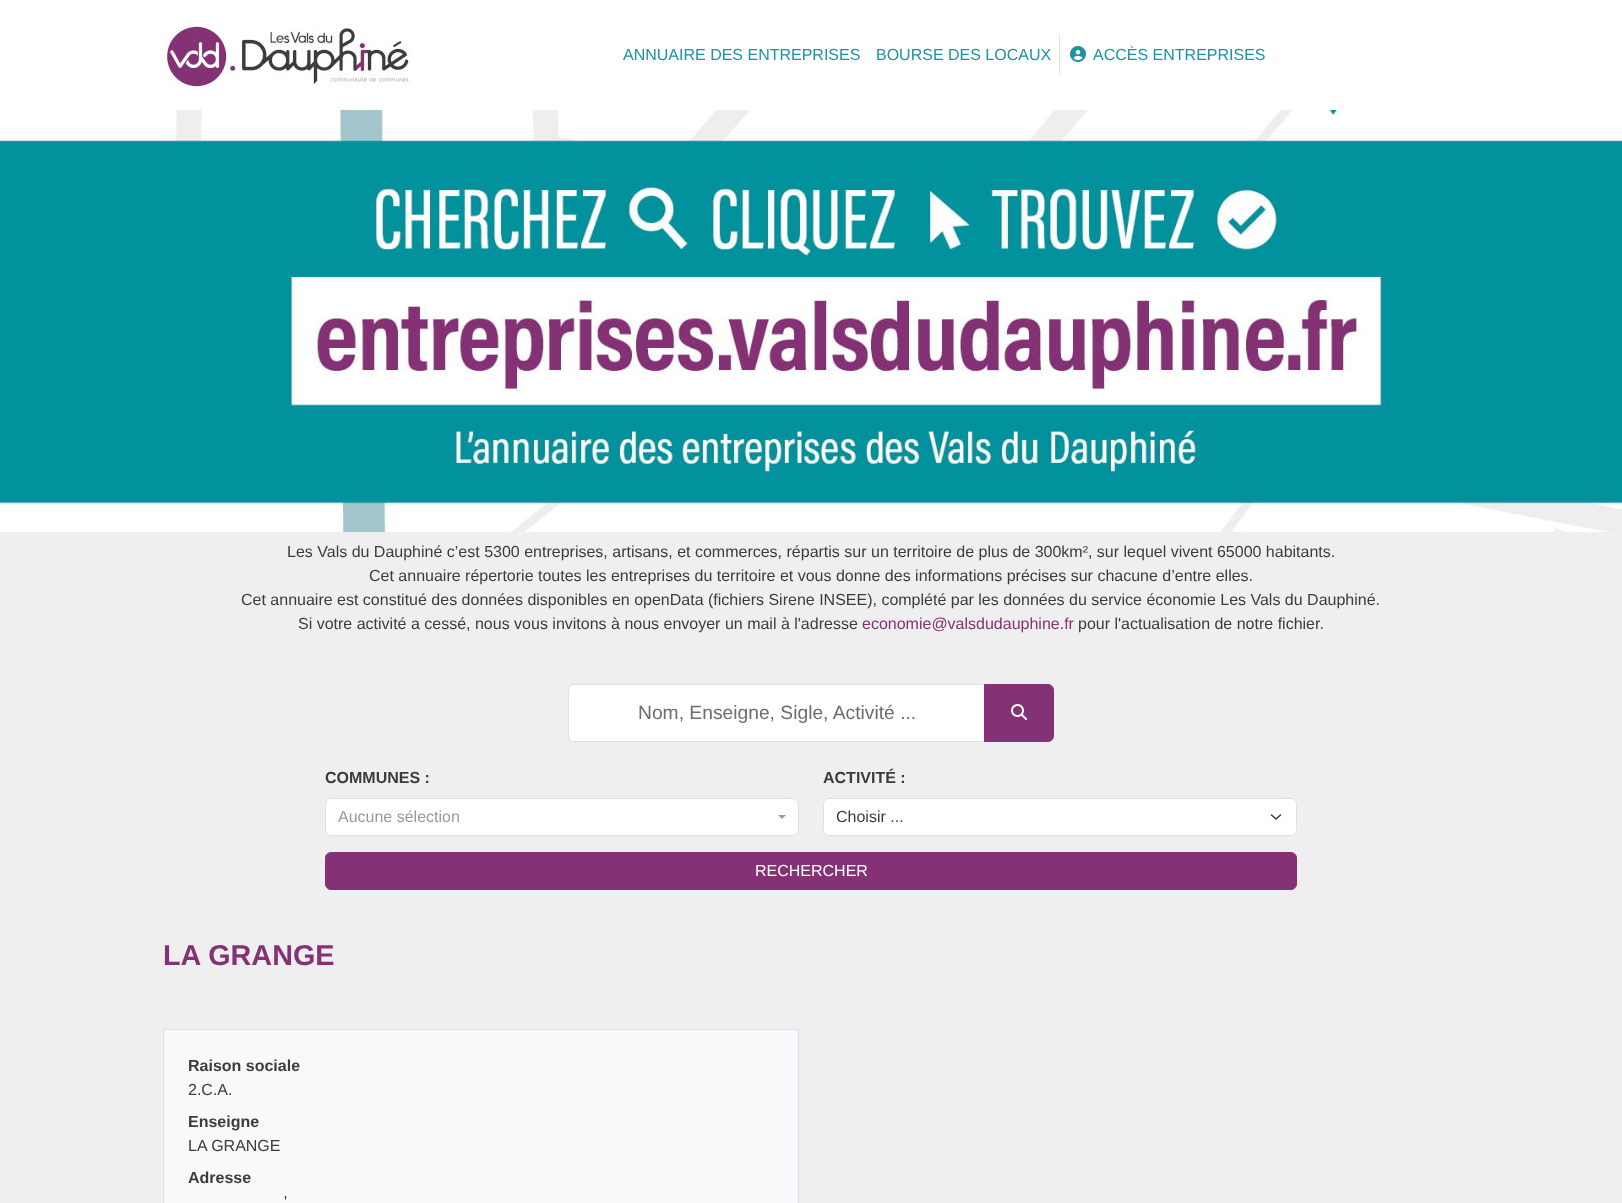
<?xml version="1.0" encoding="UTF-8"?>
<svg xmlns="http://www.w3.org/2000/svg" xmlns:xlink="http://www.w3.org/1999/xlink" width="1622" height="1203">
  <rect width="100%" height="100%" fill="#efefef" />
  <rect width="1622" height="110" fill="#ffffff" />
  <image x="163" y="21" width="248" height="72" xlink:href="image1.png" />
  <rect x="1059" y="35" width="1" height="40" fill="#dee2e6" />
  <image x="1070" y="46" width="16" height="16" xlink:href="image2.png" />
  <image x="0" y="110" width="1622" height="422" xlink:href="image3.png" />
  <path d="M 574 684.5 h 410.5 v 57 h -410.5 c -3 0 -5.5 -2.5 -5.5 -5.5 v -46 c 0 -3 2.5 -5.5 5.5 -5.5 z" fill="#ffffff" stroke="#dee2e6" />
  <path d="M 984.5 684.5 h 63.5 c 3 0 5.5 2.5 5.5 5.5 v 46 c 0 3 -2.5 5.5 -5.5 5.5 h -63.5 z" fill="#853175" stroke="#853175" />
  <image x="1011" y="704" width="16" height="16" xlink:href="image4.png" />
  <rect x="325.5" y="798.5" width="473" height="37" rx="5.5" fill="#ffffff" stroke="#dee2e6" />
  <path d="M 778 815 h 8 l -4 4 z" fill="#999999" />
  <rect x="823" y="798" width="474" height="38" rx="6" fill="#ffffff" />
  <path d="M 1271.5 815 l 4.5 4 l 4.5 -4" fill="none" stroke="#343a40" stroke-width="1.5" stroke-linecap="round" stroke-linejoin="round" />
  <rect x="823.5" y="798.5" width="473" height="37" rx="5.5" fill="none" stroke="#dee2e6" />
  <rect x="325.5" y="852.5" width="971" height="37" rx="5.5" fill="#853175" stroke="#853175" />
  <rect x="163.5" y="1029.5" width="635" height="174" fill="#f8f9fa" stroke="#dee2e6" />
  <text x="623" y="60" style="font-family: Liberation Sans; font-size: 16px; fill: #1b93a0">ANNUAIRE DES ENTREPRISES</text>
  <text x="876" y="60" style="font-family: Liberation Sans; font-size: 16px; fill: #1b93a0">BOURSE DES LOCAUX</text>
  <text x="1093" y="60" style="font-family: Liberation Sans; font-size: 16px; fill: #1b93a0">ACCÈS ENTREPRISES</text>
  <text x="287" y="557" style="font-family: Liberation Sans; font-size: 16px; fill: #3c3c3b">Les Vals du Dauphiné c’est 5300 entreprises, artisans, et commerces, répartis sur un territoire de plus de 300km², sur lequel vivent 65000 habitants.</text>
  <text x="369" y="581" style="font-family: Liberation Sans; font-size: 16px; fill: #3c3c3b">Cet annuaire répertorie toutes les entreprises du territoire et vous donne des informations précises sur chacune d’entre elles.</text>
  <text x="241" y="605" style="font-family: Liberation Sans; font-size: 16px; fill: #3c3c3b">Cet annuaire est constitué des données disponibles en openData (fichiers Sirene INSEE), complété par les données du service économie Les Vals du Dauphiné.</text>
  <text x="298" y="629" style="font-family: Liberation Sans; font-size: 16px; fill: #3c3c3b">Si votre activité a cessé, nous vous invitons à nous envoyer un mail à l'adresse</text>
  <text x="862" y="629" style="font-family: Liberation Sans; font-size: 16px; fill: #853175">economie@valsdudauphine.fr</text>
  <text x="1078" y="629" style="font-family: Liberation Sans; font-size: 16px; fill: #3c3c3b">pour l'actualisation de notre fichier.</text>
  <text x="638" y="719" style="font-family: Liberation Sans; font-size: 19.25px; fill: #6d6d6c">Nom, Enseigne, Sigle, Activité ...</text>
  <text x="325" y="783" style="font-family: Liberation Sans; font-size: 16px; font-weight: bold; fill: #3c3c3b">COMMUNES :</text>
  <text x="338" y="822" style="font-family: Liberation Sans; font-size: 16px; fill: #999999">Aucune sélection</text>
  <text x="823" y="783" style="font-family: Liberation Sans; font-size: 16px; font-weight: bold; fill: #3c3c3b">ACTIVITÉ :</text>
  <text x="836" y="822" style="font-family: Liberation Sans; font-size: 16px; fill: #3c3c3b">Choisir ...</text>
  <text x="755" y="876" style="font-family: Liberation Sans; font-size: 16px; fill: #ffffff">RECHERCHER</text>
  <text x="163" y="965" style="font-family: Liberation Sans; font-size: 28.75px; font-weight: bold; fill: #853175">LA GRANGE</text>
  <text x="188" y="1071" style="font-family: Liberation Sans; font-size: 16px; font-weight: bold; fill: #3c3c3b">Raison sociale</text>
  <text x="188" y="1095" style="font-family: Liberation Sans; font-size: 16px; fill: #3c3c3b">2.C.A.</text>
  <text x="188" y="1127" style="font-family: Liberation Sans; font-size: 16px; font-weight: bold; fill: #3c3c3b">Enseigne</text>
  <text x="188" y="1151" style="font-family: Liberation Sans; font-size: 16px; fill: #3c3c3b">LA GRANGE</text>
  <text x="188" y="1183" style="font-family: Liberation Sans; font-size: 16px; font-weight: bold; fill: #3c3c3b">Adresse</text>
  <text x="284" y="1207" style="font-family: Liberation Sans; font-size: 16px; fill: #3c3c3b">'</text>
</svg>
